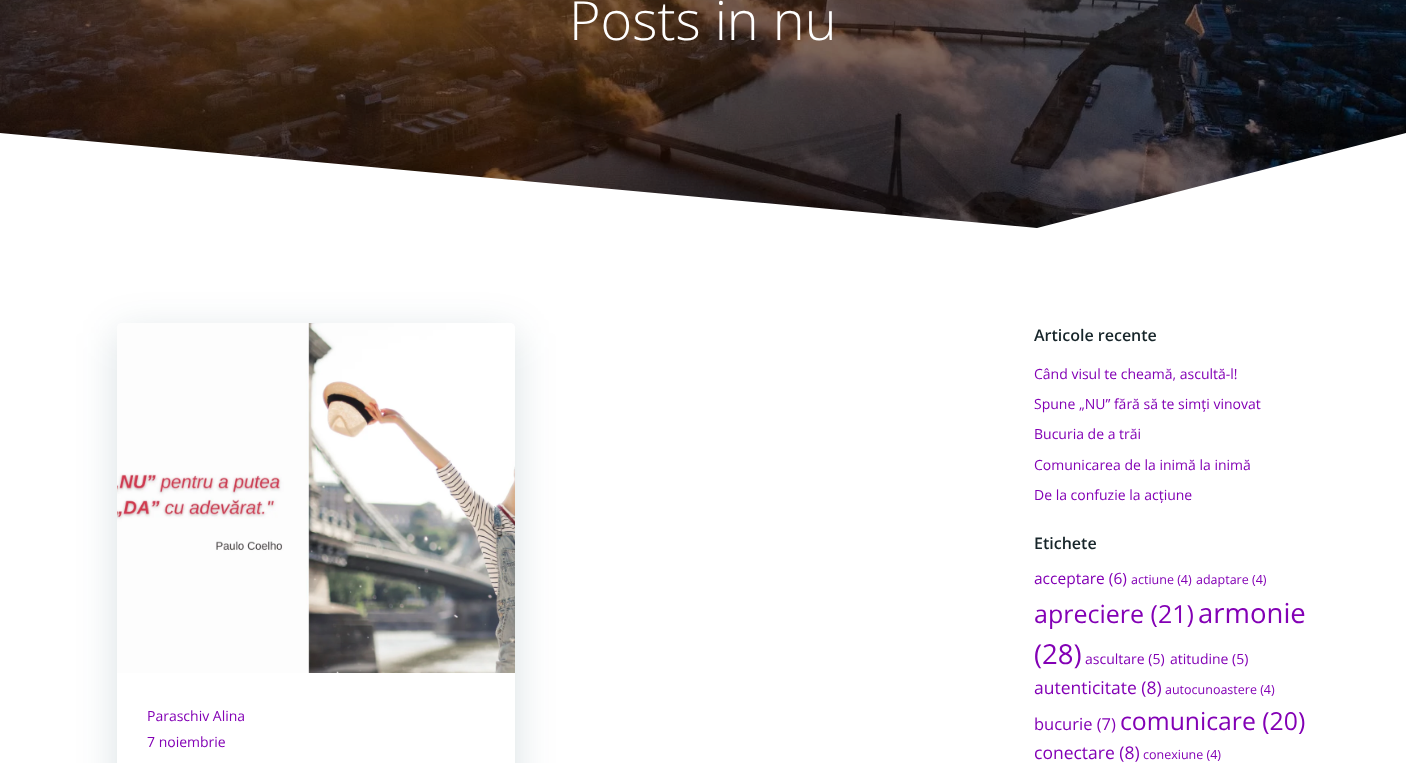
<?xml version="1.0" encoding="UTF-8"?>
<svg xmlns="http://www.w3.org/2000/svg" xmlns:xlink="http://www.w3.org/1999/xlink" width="1406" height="763">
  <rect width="100%" height="100%" fill="#ffffff" />
  <image x="0" y="0" width="1406" height="228" xlink:href="image1.png" />
  <path d="M 1037 228 l -1037 -95 v 100 h 1406 v -100 z" fill="#ffffff" />
  <rect x="117" y="333" width="398" height="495" rx="5" fill="#01334a" fill-opacity="0.15" filter="blur(20px)" />
  <rect x="117" y="323" width="398" height="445" rx="5" fill="#ffffff" />
  <image x="117" y="323" width="398" height="350" xlink:href="image2.png" />
  <text x="569" y="40" style="font-family: Open Sans; font-size: 54px; font-weight: 300; fill: #ffffff">Posts in nu</text>
  <text x="147" y="721" style="font-family: Open Sans; font-size: 14px; fill: #8300b5">Paraschiv Alina</text>
  <text x="147" y="747" style="font-family: Open Sans; font-size: 14px; fill: #8300b5">7 noiembrie</text>
  <text x="1034" y="341" style="font-family: Open Sans; font-size: 16px; font-weight: 600; fill: #17252a">Articole recente</text>
  <text x="1034" y="379" style="font-family: Open Sans; font-size: 14px; fill: #8300b5">Când visul te cheamă, ascultă-l!</text>
  <text x="1034" y="409" style="font-family: Open Sans; font-size: 14px; fill: #8300b5">Spune „NU” fără să te simți vinovat</text>
  <text x="1034" y="439" style="font-family: Open Sans; font-size: 14px; fill: #8300b5">Bucuria de a trăi</text>
  <text x="1034" y="470" style="font-family: Open Sans; font-size: 14px; fill: #8300b5">Comunicarea de la inimă la inimă</text>
  <text x="1034" y="500" style="font-family: Open Sans; font-size: 14px; fill: #8300b5">De la confuzie la acțiune</text>
  <text x="1034" y="549" style="font-family: Open Sans; font-size: 16px; font-weight: 600; fill: #17252a">Etichete</text>
  <text x="1034" y="584" style="font-family: Open Sans; font-size: 15.5px; fill: #8300b5">acceptare (6)</text>
  <text x="1131" y="584" style="font-family: Open Sans; font-size: 12.5px; fill: #8300b5">actiune (4)</text>
  <text x="1196" y="584" style="font-family: Open Sans; font-size: 12.5px; fill: #8300b5">adaptare (4)</text>
  <text x="1034" y="623" style="font-family: Open Sans; font-size: 25px; fill: #8300b5">apreciere (21)</text>
  <text x="1198" y="623" style="font-family: Open Sans; font-size: 27.5px; fill: #8300b5">armonie</text>
  <text x="1034" y="664" style="font-family: Open Sans; font-size: 27.5px; fill: #8300b5">(28)</text>
  <text x="1085" y="664" style="font-family: Open Sans; font-size: 14px; fill: #8300b5">ascultare (5)</text>
  <text x="1170" y="664" style="font-family: Open Sans; font-size: 14px; fill: #8300b5">atitudine (5)</text>
  <text x="1034" y="694" style="font-family: Open Sans; font-size: 17.5px; fill: #8300b5">autenticitate (8)</text>
  <text x="1165" y="694" style="font-family: Open Sans; font-size: 12.5px; fill: #8300b5">autocunoastere (4)</text>
  <text x="1034" y="730" style="font-family: Open Sans; font-size: 16.5px; fill: #8300b5">bucurie (7)</text>
  <text x="1120" y="730" style="font-family: Open Sans; font-size: 24.75px; fill: #8300b5">comunicare (20)</text>
  <text x="1034" y="759" style="font-family: Open Sans; font-size: 17.5px; fill: #8300b5">conectare (8)</text>
  <text x="1143" y="759" style="font-family: Open Sans; font-size: 12.5px; fill: #8300b5">conexiune (4)</text>
</svg>
